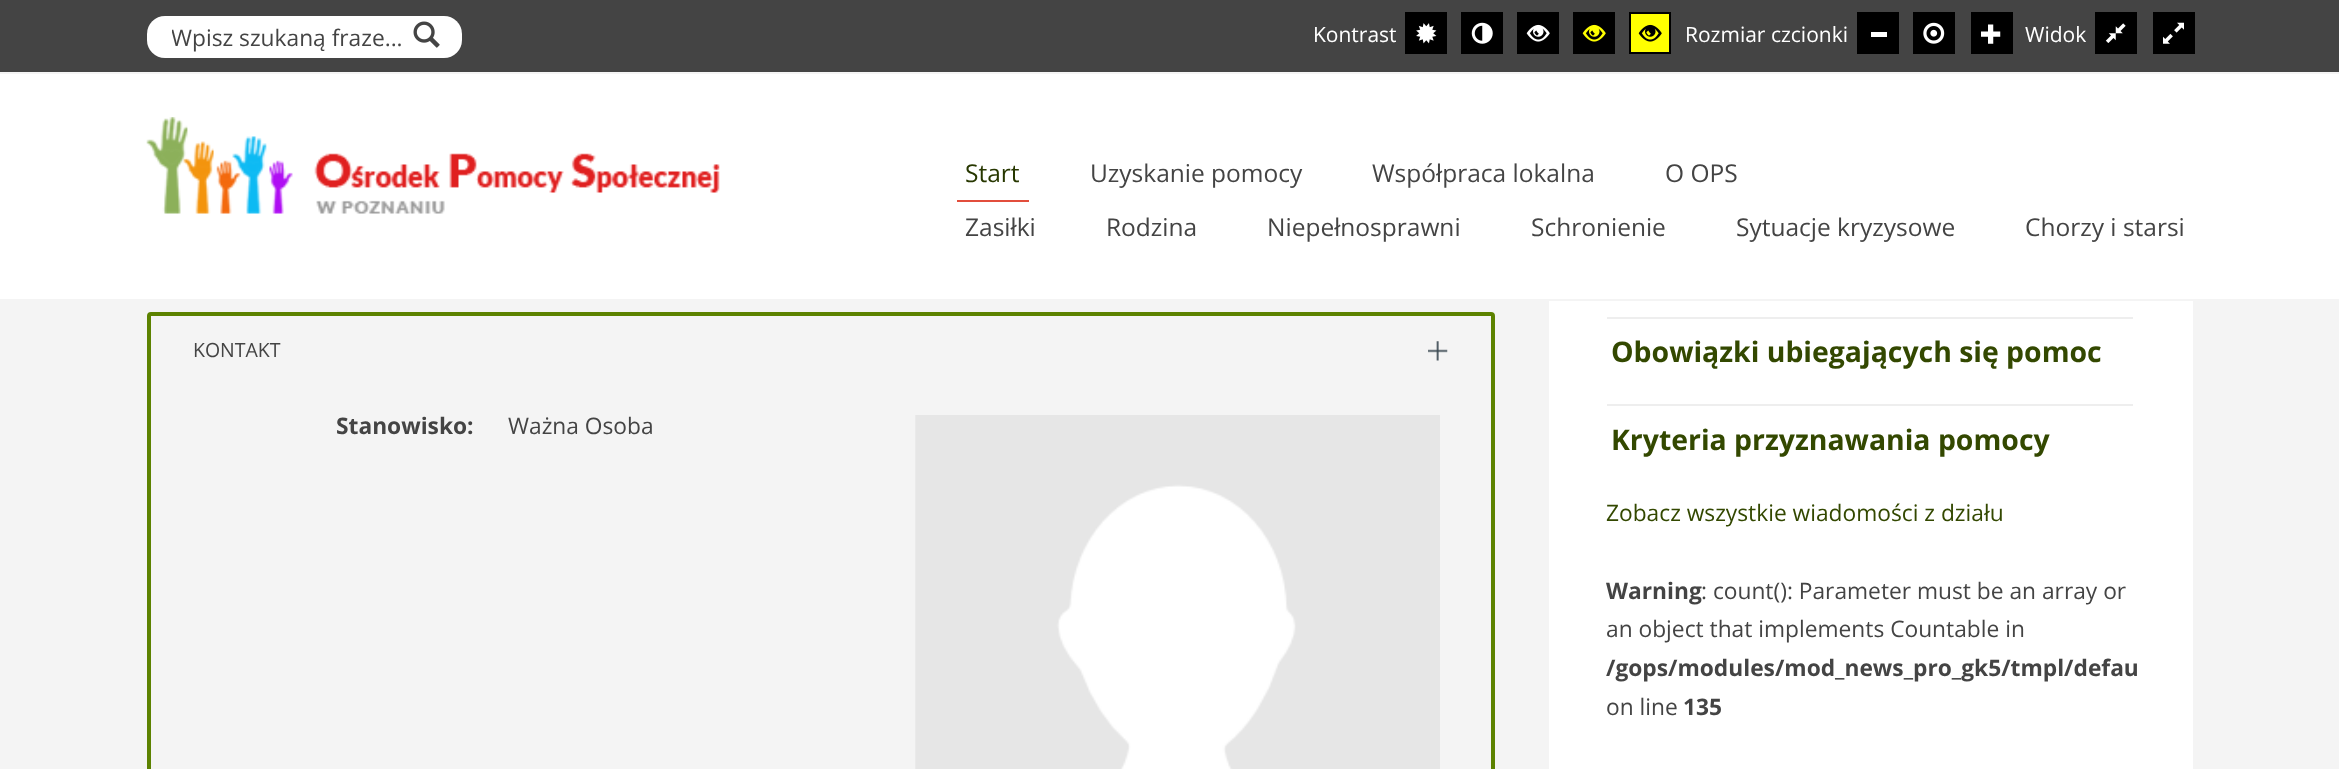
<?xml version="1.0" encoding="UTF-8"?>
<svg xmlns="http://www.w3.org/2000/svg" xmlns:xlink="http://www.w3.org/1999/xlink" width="2339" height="769">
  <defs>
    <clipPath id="clip1"><rect x="172" y="21" width="259" height="32" /></clipPath>
  </defs>
  <rect width="100%" height="100%" fill="#f4f4f4" />
  <rect width="2339" height="72" fill="#444444" />
  <rect x="147" y="16" width="315" height="42" rx="18" fill="#ffffff" />
  <image x="413" y="21" width="27" height="27" xlink:href="image1.png" />
  <rect x="1405" y="12" width="42" height="42" fill="#000000" />
  <image x="1416" y="23" width="21" height="21" xlink:href="image2.png" />
  <rect x="1461" y="12" width="42" height="42" fill="#000000" />
  <image x="1471" y="22" width="22" height="22" xlink:href="image3.png" />
  <rect x="1517" y="12" width="42" height="42" fill="#000000" />
  <image x="1526" y="24" width="24" height="18" xlink:href="image4.png" />
  <rect x="1573" y="12" width="42" height="42" fill="#000000" />
  <image x="1582" y="24" width="24" height="18" xlink:href="image5.png" />
  <rect x="1630" y="13" width="40" height="40" fill="#ffff00" stroke="#000000" stroke-width="2" />
  <image x="1638" y="24" width="24" height="18" xlink:href="image6.png" />
  <rect x="1857" y="12" width="42" height="42" fill="#000000" />
  <rect x="1871" y="32" width="16" height="5" fill="#ffffff" />
  <rect x="1913" y="12" width="42" height="42" fill="#000000" />
  <image x="1923" y="22" width="22" height="22" xlink:href="image7.png" />
  <rect x="1971" y="12" width="42" height="42" fill="#000000" />
  <image x="1981" y="24" width="20" height="20" xlink:href="image8.png" />
  <rect x="2095" y="12" width="42" height="42" fill="#000000" />
  <image x="2105" y="23" width="21" height="20" xlink:href="image9.png" />
  <rect x="2153" y="12" width="42" height="42" fill="#000000" />
  <image x="2163" y="22" width="21" height="22" xlink:href="image10.png" />
  <rect y="74" width="2339" height="225" fill="#ffffff" />
  <image x="146" y="117" width="574" height="97" xlink:href="image11.png" />
  <rect x="957" y="200" width="72" height="2" fill="#e24e3c" />
  <rect x="149" y="314" width="1344" height="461" rx="2" fill="none" stroke="#5c8200" stroke-width="4" />
  <image x="1428" y="341" width="20" height="20" xlink:href="image12.png" />
  <image x="915" y="415" width="525" height="354" xlink:href="image13.png" />
  <rect x="1549" y="301" width="644" height="468" fill="#ffffff" />
  <rect x="1607" y="317" width="526" height="2" fill="#eeeeee" />
  <rect x="1607" y="404" width="526" height="2" fill="#eeeeee" />
  <g clip-path="url(#clip1)">
    <text x="171" y="46" style="font-family: Open Sans; font-size: 22.75px; fill: #444444">Wpisz szukaną fraze...</text>
  </g>
  <text x="1313" y="42" style="font-family: Open Sans; font-size: 21px; fill: #ffffff">Kontrast</text>
  <text x="1685" y="42" style="font-family: Open Sans; font-size: 21px; fill: #ffffff">Rozmiar czcionki</text>
  <text x="2025" y="42" style="font-family: Open Sans; font-size: 21px; fill: #ffffff">Widok</text>
  <text x="965" y="182" style="font-family: Open Sans; font-size: 24.5px; fill: #273700">Start</text>
  <text x="1090" y="182" style="font-family: Open Sans; font-size: 24.5px; fill: #444444">Uzyskanie pomocy</text>
  <text x="1372" y="182" style="font-family: Open Sans; font-size: 24.5px; fill: #444444">Współpraca lokalna</text>
  <text x="1665" y="182" style="font-family: Open Sans; font-size: 24.5px; fill: #444444">O OPS</text>
  <text x="965" y="236" style="font-family: Open Sans; font-size: 24.5px; fill: #444444">Zasiłki</text>
  <text x="1106" y="236" style="font-family: Open Sans; font-size: 24.5px; fill: #444444">Rodzina</text>
  <text x="1267" y="236" style="font-family: Open Sans; font-size: 24.5px; fill: #444444">Niepełnosprawni</text>
  <text x="1531" y="236" style="font-family: Open Sans; font-size: 24.5px; fill: #444444">Schronienie</text>
  <text x="1736" y="236" style="font-family: Open Sans; font-size: 24.5px; fill: #444444">Sytuacje kryzysowe</text>
  <text x="2025" y="236" style="font-family: Open Sans; font-size: 24.5px; fill: #444444">Chorzy i starsi</text>
  <text x="193" y="357" style="font-family: Open Sans; font-size: 19.5px; fill: #444444">KONTAKT</text>
  <text x="336" y="434" style="font-family: Open Sans; font-size: 22.75px; font-weight: bold; fill: #444444">Stanowisko:</text>
  <text x="508" y="434" style="font-family: Open Sans; font-size: 22.75px; fill: #444444">Ważna Osoba</text>
  <text x="1611" y="362" style="font-family: Open Sans; font-size: 28.4px; font-weight: bold; fill: #334800">Obowiązki ubiegających się pomoc</text>
  <text x="1611" y="450" style="font-family: Open Sans; font-size: 28.4px; font-weight: bold; fill: #334800">Kryteria przyznawania pomocy</text>
  <text x="1606" y="521" style="font-family: Open Sans; font-size: 22.75px; fill: #334800">Zobacz wszystkie wiadomości z działu</text>
  <text x="1606" y="599" style="font-family: Open Sans; font-size: 22.75px; font-weight: bold; fill: #444444">Warning</text>
  <text x="1701" y="599" style="font-family: Open Sans; font-size: 22.75px; fill: #444444">: count(): Parameter must be an array or</text>
  <text x="1606" y="637" style="font-family: Open Sans; font-size: 22.75px; fill: #444444">an object that implements Countable in</text>
  <text x="1606" y="676" style="font-family: Open Sans; font-size: 22.75px; font-weight: bold; fill: #444444">/gops/modules/mod_news_pro_gk5/tmpl/defau</text>
  <text x="1606" y="715" style="font-family: Open Sans; font-size: 22.75px; fill: #444444">on line</text>
  <text x="1683" y="715" style="font-family: Open Sans; font-size: 22.75px; font-weight: bold; fill: #444444">135</text>
</svg>
